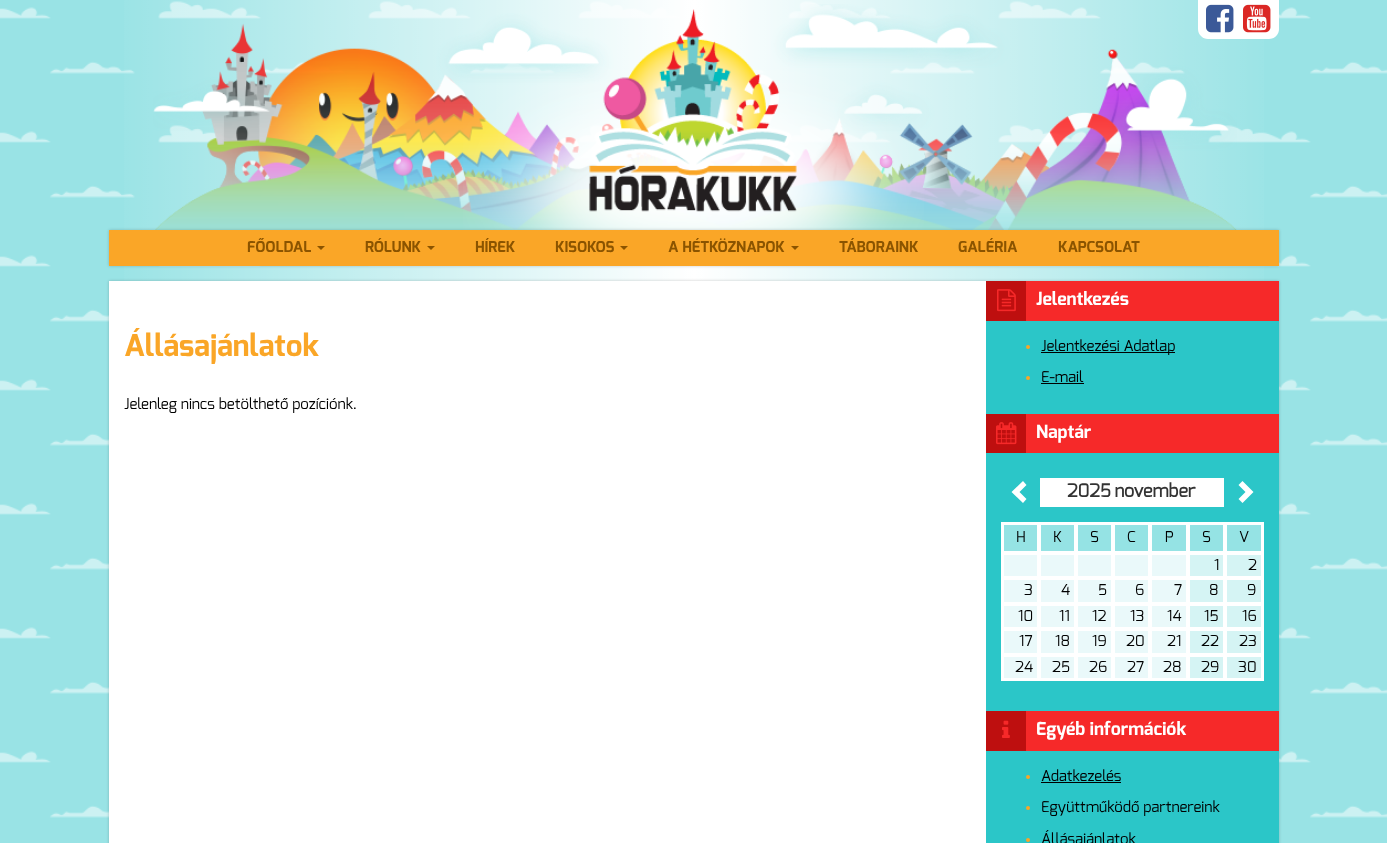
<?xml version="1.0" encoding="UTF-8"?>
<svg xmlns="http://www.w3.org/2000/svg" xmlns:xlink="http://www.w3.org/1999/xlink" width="1387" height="843">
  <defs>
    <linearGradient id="g1" gradientUnits="userSpaceOnUse" x1="109" y1="616" x2="1279" y2="616"><stop offset="0" stop-color="#ffffff" stop-opacity="0" /><stop offset="0.5" stop-color="#ffffff" /><stop offset="1" stop-color="#ffffff" stop-opacity="0" /></linearGradient>
  </defs>
  <rect width="100%" height="100%" fill="#99e3e5" />
  <image x="0" y="1" width="1387" height="817" xlink:href="image1.png" />
  <rect x="124" width="1140" height="281" fill="url(#g1)" />
  <image x="153" y="4" width="1084" height="226" xlink:href="image2.png" />
  <image x="463" y="9" width="461" height="221" xlink:href="image3.png" />
  <path d="M 1198 0 h 81 v 29 c 0 5.5 -4.5 10 -10 10 h -61 c -5.5 0 -10 -4.5 -10 -10 z" fill="#ffffff" />
  <image x="1206" y="4" width="28" height="29" xlink:href="image4.png" />
  <image x="1243" y="4" width="28" height="29" xlink:href="image5.png" />
  <rect x="109" y="230" width="1170" height="36" fill="#000000" fill-opacity="0.2" filter="blur(1.5px)" />
  <rect x="109" y="230" width="1170" height="36" fill="#faa627" />
  <path d="M 317 246 h 8 l -4 4 z" fill="#8b5400" />
  <path d="M 427 246 h 8 l -4 4 z" fill="#8b5400" />
  <path d="M 620 246 h 8 l -4 4 z" fill="#8b5400" />
  <path d="M 791 246 h 8 l -4 4 z" fill="#8b5400" />
  <rect x="109" y="281" width="1170" height="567" fill="#000000" fill-opacity="0.2" filter="blur(1.5px)" />
  <rect x="109" y="281" width="877" height="562" fill="#ffffff" />
  <rect x="986" y="321" width="293" height="522" fill="#2bc6c8" />
  <rect x="986" y="281" width="40" height="40" fill="#be0f0f" />
  <image x="997" y="289" width="19" height="23" xlink:href="image6.png" />
  <rect x="1026" y="281" width="253" height="40" fill="#f62929" />
  <circle cx="1028" cy="347" r="2" fill="#faa627" />
  <rect x="1041" y="352" width="134" height="1" fill="#000000" />
  <circle cx="1028" cy="378" r="2" fill="#faa627" />
  <rect x="1041" y="383" width="43" height="1" fill="#000000" />
  <rect x="986" y="414" width="40" height="39" fill="#be0f0f" />
  <image x="996" y="422" width="21" height="23" xlink:href="image7.png" />
  <rect x="1026" y="414" width="253" height="39" fill="#f62929" />
  <path d="M 1026.5 485 l -7 7 l 7 7 l -3.5 4 l -11.5 -11 l 11.5 -11 z" fill="#ffffff" />
  <rect x="1040" y="478" width="184" height="29" fill="#ffffff" />
  <path d="M 1253.5 492 l -11 11 l -4 -4 l 7 -7 l -7 -7 l 4 -4 z" fill="#ffffff" />
  <rect x="1001" y="522" width="263" height="159" fill="#ffffff" />
  <rect x="1004" y="525" width="33" height="26" fill="#95e3e4" />
  <rect x="1041" y="525" width="33" height="26" fill="#95e3e4" />
  <rect x="1078" y="525" width="33" height="26" fill="#95e3e4" />
  <rect x="1115" y="525" width="33" height="26" fill="#95e3e4" />
  <rect x="1152" y="525" width="34" height="26" fill="#95e3e4" />
  <rect x="1190" y="525" width="33" height="26" fill="#95e3e4" />
  <rect x="1227" y="525" width="34" height="26" fill="#95e3e4" />
  <rect x="1004" y="555" width="33" height="21" fill="#eaf9fa" />
  <rect x="1041" y="555" width="33" height="21" fill="#eaf9fa" />
  <rect x="1078" y="555" width="33" height="21" fill="#eaf9fa" />
  <rect x="1115" y="555" width="33" height="21" fill="#eaf9fa" />
  <rect x="1152" y="555" width="34" height="21" fill="#eaf9fa" />
  <rect x="1190" y="555" width="33" height="21" fill="#d5f4f4" />
  <rect x="1227" y="555" width="34" height="21" fill="#d5f4f4" />
  <rect x="1004" y="580" width="33" height="22" fill="#eaf9fa" />
  <rect x="1041" y="580" width="33" height="22" fill="#eaf9fa" />
  <rect x="1078" y="580" width="33" height="22" fill="#eaf9fa" />
  <rect x="1115" y="580" width="33" height="22" fill="#eaf9fa" />
  <rect x="1152" y="580" width="34" height="22" fill="#eaf9fa" />
  <rect x="1190" y="580" width="33" height="22" fill="#d5f4f4" />
  <rect x="1227" y="580" width="34" height="22" fill="#d5f4f4" />
  <rect x="1004" y="606" width="33" height="21" fill="#eaf9fa" />
  <rect x="1041" y="606" width="33" height="21" fill="#eaf9fa" />
  <rect x="1078" y="606" width="33" height="21" fill="#eaf9fa" />
  <rect x="1115" y="606" width="33" height="21" fill="#eaf9fa" />
  <rect x="1152" y="606" width="34" height="21" fill="#eaf9fa" />
  <rect x="1190" y="606" width="33" height="21" fill="#d5f4f4" />
  <rect x="1227" y="606" width="34" height="21" fill="#d5f4f4" />
  <rect x="1004" y="631" width="33" height="22" fill="#eaf9fa" />
  <rect x="1041" y="631" width="33" height="22" fill="#eaf9fa" />
  <rect x="1078" y="631" width="33" height="22" fill="#eaf9fa" />
  <rect x="1115" y="631" width="33" height="22" fill="#eaf9fa" />
  <rect x="1152" y="631" width="34" height="22" fill="#eaf9fa" />
  <rect x="1190" y="631" width="33" height="22" fill="#d5f4f4" />
  <rect x="1227" y="631" width="34" height="22" fill="#d5f4f4" />
  <rect x="1004" y="657" width="33" height="21" fill="#eaf9fa" />
  <rect x="1041" y="657" width="33" height="21" fill="#eaf9fa" />
  <rect x="1078" y="657" width="33" height="21" fill="#eaf9fa" />
  <rect x="1115" y="657" width="33" height="21" fill="#eaf9fa" />
  <rect x="1152" y="657" width="34" height="21" fill="#eaf9fa" />
  <rect x="1190" y="657" width="33" height="21" fill="#d5f4f4" />
  <rect x="1227" y="657" width="34" height="21" fill="#d5f4f4" />
  <rect x="986" y="711" width="40" height="40" fill="#be0f0f" />
  <image x="1002" y="720" width="8" height="18" xlink:href="image8.png" />
  <rect x="1026" y="711" width="253" height="40" fill="#f62929" />
  <circle cx="1028" cy="777" r="2" fill="#faa627" />
  <rect x="1041" y="782" width="80" height="1" fill="#000000" />
  <circle cx="1028" cy="808" r="2" fill="#faa627" />
  <circle cx="1028" cy="840" r="2" fill="#faa627" />
  <text x="247" y="252" style="font-family: Exo; font-size: 15px; font-weight: bold; fill: #8b5400">FŐOLDAL</text>
  <text x="365" y="252" style="font-family: Exo; font-size: 15px; font-weight: bold; fill: #8b5400">RÓLUNK</text>
  <text x="475" y="252" style="font-family: Exo; font-size: 15px; font-weight: bold; fill: #8b5400">HÍREK</text>
  <text x="555" y="252" style="font-family: Exo; font-size: 15px; font-weight: bold; fill: #8b5400">KISOKOS</text>
  <text x="668" y="252" style="font-family: Exo; font-size: 15px; font-weight: bold; fill: #8b5400">A HÉTKÖZNAPOK</text>
  <text x="839" y="252" style="font-family: Exo; font-size: 15px; font-weight: bold; fill: #8b5400">TÁBORAINK</text>
  <text x="958" y="252" style="font-family: Exo; font-size: 15px; font-weight: bold; fill: #8b5400">GALÉRIA</text>
  <text x="1058" y="252" style="font-family: Exo; font-size: 15px; font-weight: bold; fill: #8b5400">KAPCSOLAT</text>
  <text x="124" y="356" style="font-family: Exo; font-size: 30px; font-weight: bold; fill: #faa627">Állásajánlatok</text>
  <text x="124" y="409" style="font-family: Exo; font-size: 15px; fill: #000000">Jelenleg nincs betölthető pozíciónk.</text>
  <text x="1036" y="305" style="font-family: Exo; font-size: 18px; font-weight: bold; fill: #ffffff">Jelentkezés</text>
  <text x="1041" y="351" style="font-family: Exo; font-size: 15px; fill: #000000">Jelentkezési Adatlap</text>
  <text x="1041" y="382" style="font-family: Exo; font-size: 15px; fill: #000000">E-mail</text>
  <text x="1036" y="438" style="font-family: Exo; font-size: 18px; font-weight: bold; fill: #ffffff">Naptár</text>
  <text x="1067" y="497" word-spacing="-1" style="font-family: 'Exo 2'; font-size: 18px; font-weight: bold; fill: #333333">2025 november</text>
  <text x="1016" y="542" style="font-family: Exo; font-size: 15px; fill: #000000">H</text>
  <text x="1053" y="542" style="font-family: Exo; font-size: 15px; fill: #000000">K</text>
  <text x="1090" y="542" style="font-family: Exo; font-size: 15px; fill: #000000">S</text>
  <text x="1127" y="542" style="font-family: Exo; font-size: 15px; fill: #000000">C</text>
  <text x="1165" y="542" style="font-family: Exo; font-size: 15px; fill: #000000">P</text>
  <text x="1202" y="542" style="font-family: Exo; font-size: 15px; fill: #000000">S</text>
  <text x="1239" y="542" style="font-family: Exo; font-size: 15px; fill: #000000">V</text>
  <text x="1214" y="570" style="font-family: Exo; font-size: 15px; fill: #000000">1</text>
  <text x="1248" y="570" style="font-family: Exo; font-size: 15px; fill: #000000">2</text>
  <text x="1024" y="595" style="font-family: Exo; font-size: 15px; fill: #000000">3</text>
  <text x="1061" y="595" style="font-family: Exo; font-size: 15px; fill: #000000">4</text>
  <text x="1098" y="595" style="font-family: Exo; font-size: 15px; fill: #000000">5</text>
  <text x="1135" y="595" style="font-family: Exo; font-size: 15px; fill: #000000">6</text>
  <text x="1174" y="595" style="font-family: Exo; font-size: 15px; fill: #000000">7</text>
  <text x="1209" y="595" style="font-family: Exo; font-size: 15px; fill: #000000">8</text>
  <text x="1247" y="595" style="font-family: Exo; font-size: 15px; fill: #000000">9</text>
  <text x="1018" y="621" style="font-family: Exo; font-size: 15px; fill: #000000">10</text>
  <text x="1059" y="621" style="font-family: Exo; font-size: 15px; fill: #000000">11</text>
  <text x="1092" y="621" style="font-family: Exo; font-size: 15px; fill: #000000">12</text>
  <text x="1130" y="621" style="font-family: Exo; font-size: 15px; fill: #000000">13</text>
  <text x="1167" y="621" style="font-family: Exo; font-size: 15px; fill: #000000">14</text>
  <text x="1204" y="621" style="font-family: Exo; font-size: 15px; fill: #000000">15</text>
  <text x="1242" y="621" style="font-family: Exo; font-size: 15px; fill: #000000">16</text>
  <text x="1019" y="646" style="font-family: Exo; font-size: 15px; fill: #000000">17</text>
  <text x="1055" y="646" style="font-family: Exo; font-size: 15px; fill: #000000">18</text>
  <text x="1092" y="646" style="font-family: Exo; font-size: 15px; fill: #000000">19</text>
  <text x="1126" y="646" style="font-family: Exo; font-size: 15px; fill: #000000">20</text>
  <text x="1167" y="646" style="font-family: Exo; font-size: 15px; fill: #000000">21</text>
  <text x="1201" y="646" style="font-family: Exo; font-size: 15px; fill: #000000">22</text>
  <text x="1239" y="646" style="font-family: Exo; font-size: 15px; fill: #000000">23</text>
  <text x="1015" y="672" style="font-family: Exo; font-size: 15px; fill: #000000">24</text>
  <text x="1052" y="672" style="font-family: Exo; font-size: 15px; fill: #000000">25</text>
  <text x="1089" y="672" style="font-family: Exo; font-size: 15px; fill: #000000">26</text>
  <text x="1127" y="672" style="font-family: Exo; font-size: 15px; fill: #000000">27</text>
  <text x="1163" y="672" style="font-family: Exo; font-size: 15px; fill: #000000">28</text>
  <text x="1201" y="672" style="font-family: Exo; font-size: 15px; fill: #000000">29</text>
  <text x="1238" y="672" style="font-family: Exo; font-size: 15px; fill: #000000">30</text>
  <text x="1036" y="735" style="font-family: Exo; font-size: 18px; font-weight: bold; fill: #ffffff">Egyéb információk</text>
  <text x="1041" y="781" style="font-family: Exo; font-size: 15px; fill: #000000">Adatkezelés</text>
  <text x="1041" y="812" style="font-family: Exo; font-size: 15px; fill: #000000">Együttműködő partnereink</text>
  <text x="1041" y="844" style="font-family: Exo; font-size: 15px; fill: #000000">Állásajánlatok</text>
</svg>
